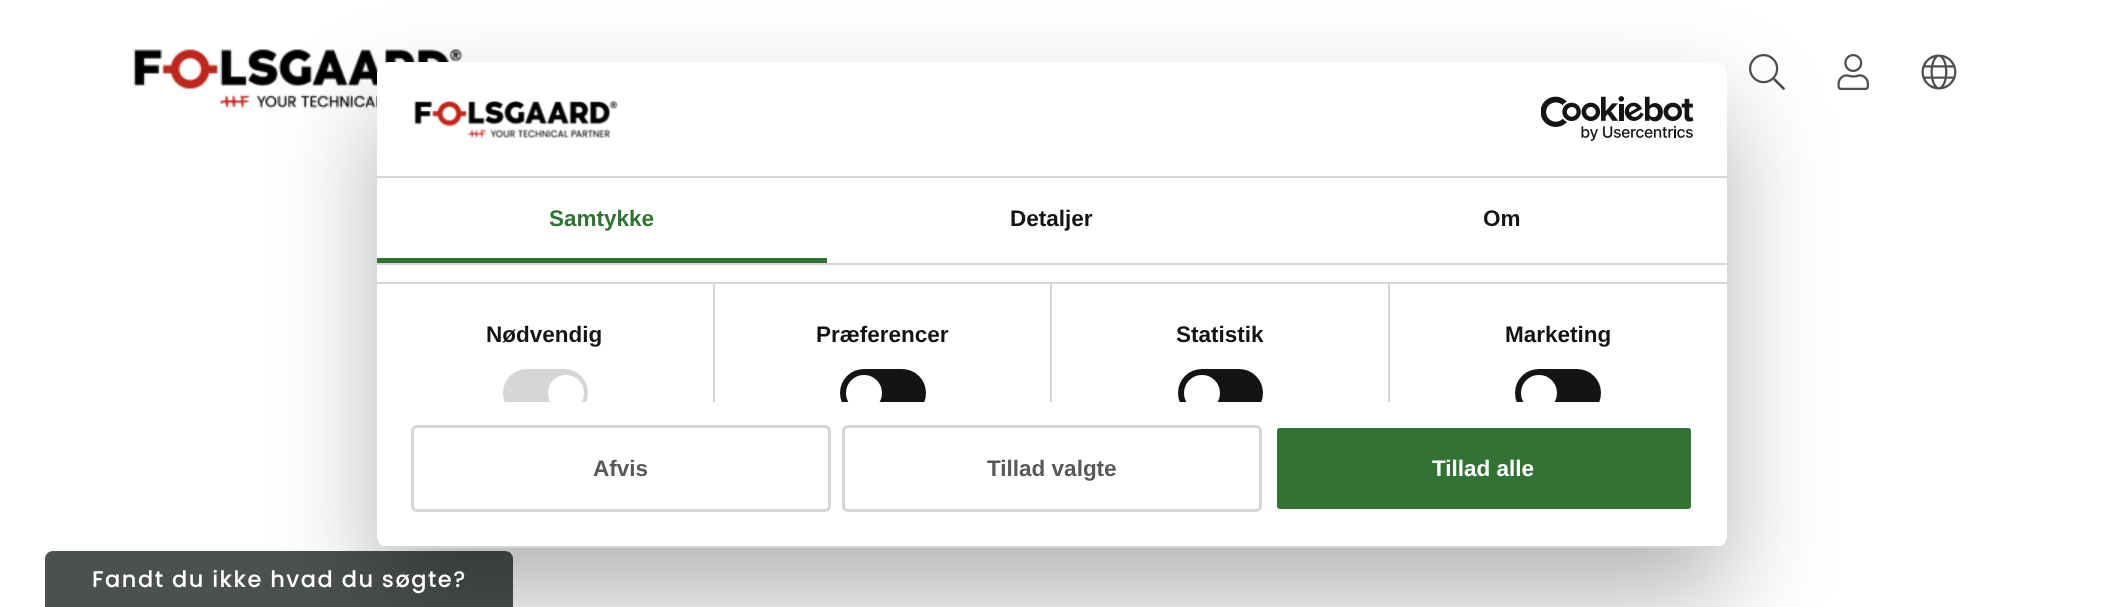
<?xml version="1.0" encoding="UTF-8"?>
<svg xmlns="http://www.w3.org/2000/svg" xmlns:xlink="http://www.w3.org/1999/xlink" width="2102" height="607">
  <defs>
    <clipPath id="clip1"><rect x="377" y="264" width="1350" height="138" /></clipPath>
    <clipPath id="clip2"><rect x="377" y="62" width="1350" height="486" rx="12" /></clipPath>
  </defs>
  <rect width="100%" height="100%" fill="#ffffff" />
  <image x="133" y="48" width="330" height="61" xlink:href="image1.png" />
  <image x="1749" y="54" width="36" height="36" xlink:href="image2.png" />
  <image x="1837" y="54" width="32" height="36" xlink:href="image3.png" />
  <image x="1921" y="54" width="36" height="36" xlink:href="image4.png" />
  <path d="M 53 552 h 452 c 4 0 7 3 7 7 v 48 h -466 v -48 c 0 -4 3 -7 7 -7 z" fill="#4c5051" stroke="#4c5051" stroke-width="2" />
  <rect x="377" y="110" width="1350" height="486" rx="12" fill="#000000" fill-opacity="0.3" filter="blur(51px)" />
  <rect x="377" y="62" width="1350" height="486" rx="12" fill="#ffffff" />
  <rect x="377" y="176" width="1350" height="2" fill="#d6d6d6" />
  <image x="414" y="100" width="204" height="38" xlink:href="image5.png" />
  <image x="1541" y="96" width="153" height="45" xlink:href="image6.png" />
  <rect x="377" y="263" width="1350" height="2" fill="#d6d6d6" />
  <rect x="377" y="258" width="450" height="5" fill="#327234" />
  <rect x="377" y="282" width="1350" height="2" fill="#d6d6d6" />
  <rect x="713" y="284" width="2" height="118" fill="#d6d6d6" />
  <g clip-path="url(#clip1)">
    <rect x="503" y="369" width="85" height="48" rx="24" fill="#d6d6d6" />
    <circle cx="566" cy="393" r="18" fill="#ffffff" />
  </g>
  <rect x="1050" y="284" width="2" height="118" fill="#d6d6d6" />
  <g clip-path="url(#clip1)">
    <rect x="840" y="369" width="86" height="48" rx="24" fill="#141414" />
    <circle cx="864" cy="393" r="18" fill="#ffffff" />
  </g>
  <rect x="1388" y="284" width="2" height="118" fill="#d6d6d6" />
  <g clip-path="url(#clip1)">
    <rect x="1178" y="369" width="85" height="48" rx="24" fill="#141414" />
    <circle cx="1202" cy="393" r="18" fill="#ffffff" />
    <rect x="1515" y="369" width="86" height="48" rx="24" fill="#141414" />
    <circle cx="1539" cy="393" r="18" fill="#ffffff" />
  </g>
  <g clip-path="url(#clip2)">
    <rect x="377" y="546" width="1350" height="2" fill="#d6d6d6" />
  </g>
  <rect x="412.5" y="426.5" width="417" height="84" rx="4.5" fill="none" stroke="#d6d6d6" stroke-width="3" />
  <rect x="843.5" y="426.5" width="417" height="84" rx="4.5" fill="none" stroke="#d6d6d6" stroke-width="3" />
  <rect x="1275.5" y="426.5" width="417" height="84" rx="4.5" fill="#327234" stroke="#ffffff" stroke-width="3" />
  <text x="549" y="226" style="font-family: Liberation Sans; font-size: 22.5px; font-weight: bold; fill: #327234">Samtykke</text>
  <text x="1010" y="226" style="font-family: Liberation Sans; font-size: 22.5px; font-weight: bold; fill: #141414">Detaljer</text>
  <text x="1483" y="226" style="font-family: Liberation Sans; font-size: 22.5px; font-weight: bold; fill: #141414">Om</text>
  <text x="486" y="342" style="font-family: Liberation Sans; font-size: 22.5px; font-weight: bold; fill: #141414">Nødvendig</text>
  <text x="816" y="342" style="font-family: Liberation Sans; font-size: 22.5px; font-weight: bold; fill: #141414">Præferencer</text>
  <text x="1176" y="342" style="font-family: Liberation Sans; font-size: 22.5px; font-weight: bold; fill: #141414">Statistik</text>
  <text x="1505" y="342" style="font-family: Liberation Sans; font-size: 22.5px; font-weight: bold; fill: #141414">Marketing</text>
  <text x="593" y="476" style="font-family: Liberation Sans; font-size: 22.5px; font-weight: bold; fill: #595959">Afvis</text>
  <text x="987" y="476" style="font-family: Liberation Sans; font-size: 22.5px; font-weight: bold; fill: #595959">Tillad valgte</text>
  <text x="1432" y="476" style="font-family: Liberation Sans; font-size: 22.5px; font-weight: bold; fill: #ffffff">Tillad alle</text>
  <text x="92" y="587" style="font-family: Poppins; font-size: 22.5px; font-weight: 500; letter-spacing: 1.5px; fill: #ffffff">Fandt du ikke hvad du søgte?</text>
</svg>
